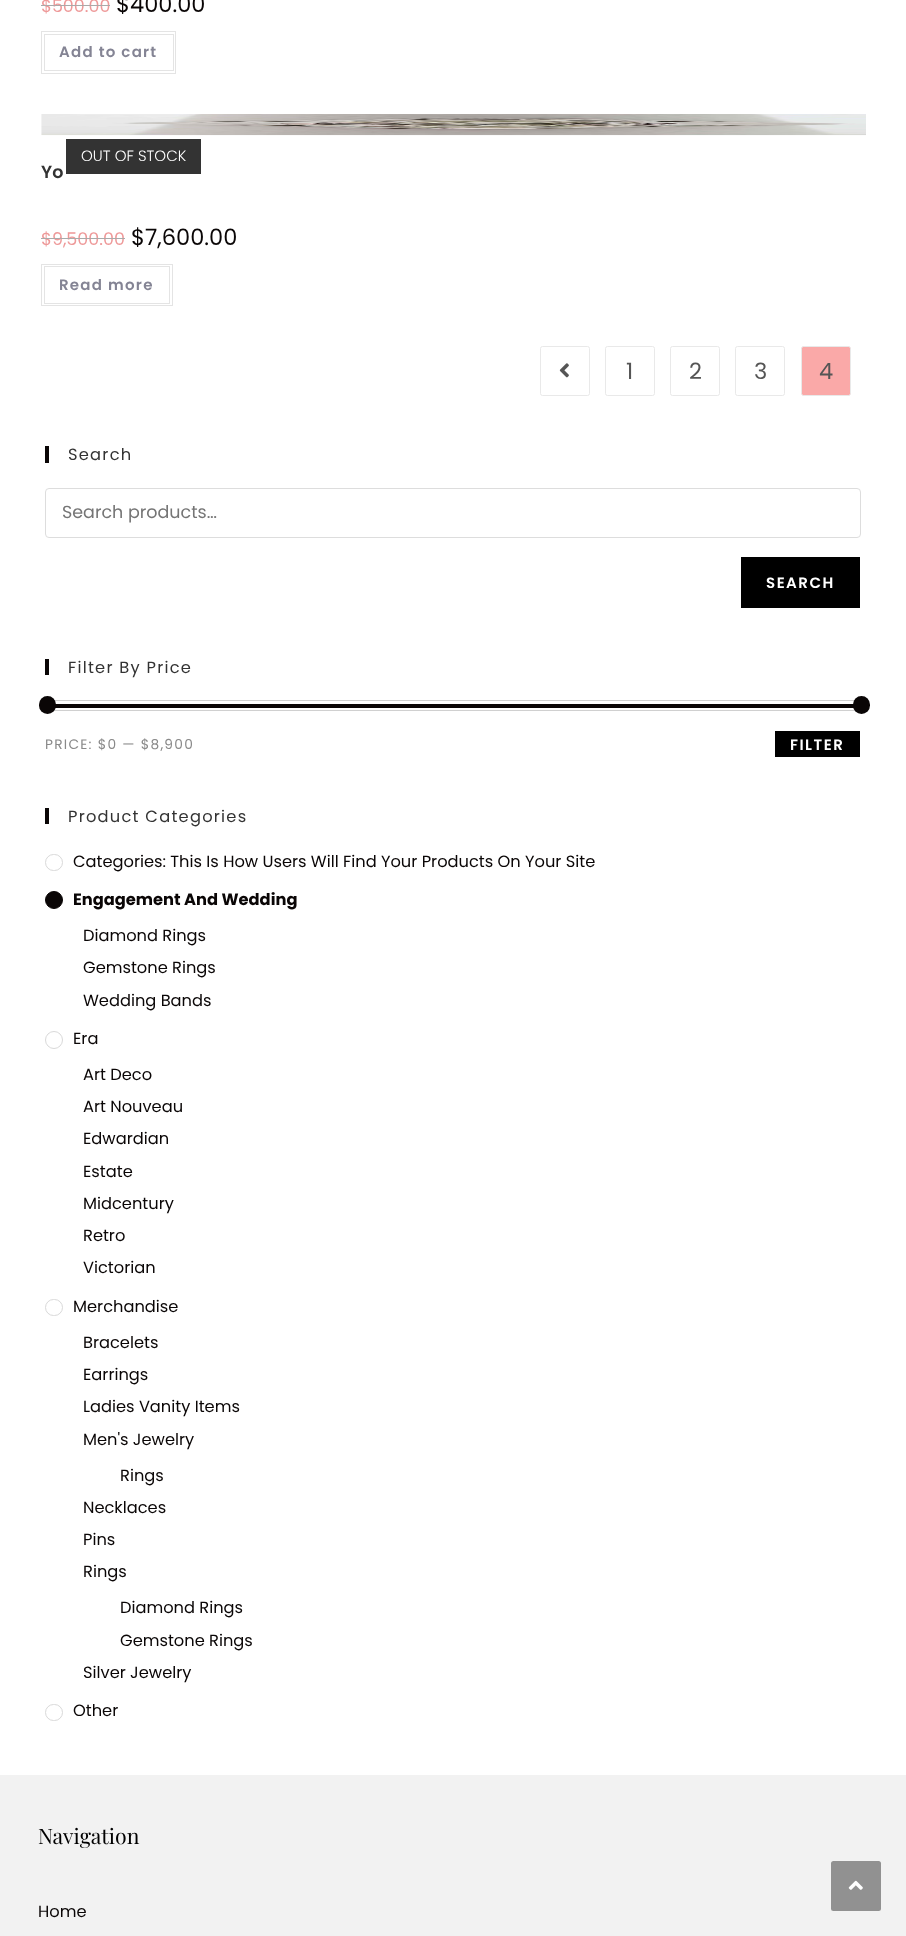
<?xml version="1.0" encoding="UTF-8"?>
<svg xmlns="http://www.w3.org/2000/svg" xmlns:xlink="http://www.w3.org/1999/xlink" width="906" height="1936">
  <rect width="100%" height="100%" fill="#ffffff" />
  <rect x="41.5" y="31.5" width="134" height="42" fill="none" stroke="#e4e4e4" />
  <rect x="44.5" y="34.5" width="129" height="36" fill="none" stroke="#e4e4e4" />
  <image x="41" y="114" width="825" height="22" xlink:href="image1.png" />
  <rect x="66" y="139" width="135" height="35" fill="#000000" fill-opacity="0.8" />
  <rect x="41.5" y="264.5" width="131" height="41" fill="none" stroke="#e4e4e4" />
  <rect x="44.5" y="266.5" width="125" height="37" fill="none" stroke="#e4e4e4" />
  <rect x="540.5" y="346.5" width="49" height="49" rx="2" fill="none" stroke="#e9e9e9" />
  <image x="559" y="363" width="10" height="15" xlink:href="image2.png" />
  <rect x="605.5" y="346.5" width="49" height="49" rx="2" fill="none" stroke="#e9e9e9" />
  <rect x="670.5" y="346.5" width="49" height="49" rx="2" fill="none" stroke="#e9e9e9" />
  <rect x="735.5" y="346.5" width="49" height="49" rx="2" fill="none" stroke="#e9e9e9" />
  <rect x="801.5" y="346.5" width="49" height="49" rx="2" fill="#faa9a8" stroke="#e9e9e9" />
  <rect x="45" y="446" width="4" height="17" fill="#0a0606" />
  <rect x="45.5" y="488.5" width="815" height="49" rx="3.5" fill="none" stroke="#dddddd" />
  <rect x="741" y="557" width="119" height="51" fill="#000000" />
  <rect x="45" y="659" width="4" height="16" fill="#0a0606" />
  <rect x="45.5" y="700.5" width="815" height="10" fill="none" stroke="#d0d0d0" />
  <rect x="55" y="704" width="805" height="4" fill="#0a0606" />
  <rect x="39" y="696" width="17" height="18" rx="8.5" fill="#0a0606" />
  <rect x="853" y="696" width="17" height="18" rx="8.5" fill="#0a0606" />
  <rect x="775" y="731" width="85" height="26" fill="#000000" />
  <rect x="45" y="808" width="4" height="16" fill="#0a0606" />
  <rect x="45.5" y="854.5" width="17" height="16" rx="8" fill="none" stroke="#d9d9d9" />
  <circle cx="54" cy="900" r="8.5" fill="#0a0606" stroke="#0a0606" />
  <circle cx="54" cy="1040" r="8.5" fill="none" stroke="#d9d9d9" />
  <rect x="45.5" y="1299.5" width="17" height="16" rx="8" fill="none" stroke="#d9d9d9" />
  <rect x="45.5" y="1704.5" width="17" height="16" rx="8" fill="none" stroke="#d9d9d9" />
  <rect y="1775" width="906" height="161" fill="#f2f2f2" />
  <rect x="831" y="1861" width="50" height="50" rx="2.5" fill="#919191" />
  <image x="848" y="1880" width="15" height="10" xlink:href="image3.png" />
  <text x="41" y="12" style="font-family: Poppins; font-size: 17.5px; fill: #ee9999">$500.00</text>
  <rect x="41" y="5" width="69" height="1" fill="#aaaaaa" />
  <text x="116" y="12" style="font-family: Poppins; font-size: 22.5px; fill: #0a0606">$400.00</text>
  <text x="59" y="57" style="font-family: Poppins; font-size: 15px; font-weight: 600; letter-spacing: 1.25px; fill: #848494">Add to cart</text>
  <text x="81" y="161" style="font-family: Poppins; font-size: 15px; font-weight: 300; fill: #ffffff">OUT OF STOCK</text>
  <text x="41" y="178" style="font-family: Poppins; font-size: 17.5px; font-weight: 600; fill: #333333">Yo</text>
  <text x="41" y="245" style="font-family: Poppins; font-size: 17.5px; fill: #ee9999">$9,500.00</text>
  <rect x="41" y="238" width="84" height="1" fill="#aaaaaa" />
  <text x="131" y="245" style="font-family: Poppins; font-size: 22.5px; fill: #0a0606">$7,600.00</text>
  <text x="59" y="290" style="font-family: Poppins; font-size: 15px; font-weight: 600; letter-spacing: 1.25px; fill: #848494">Read more</text>
  <text x="626" y="379" style="font-family: Poppins; font-size: 22.5px; fill: #555555">1</text>
  <text x="689" y="379" style="font-family: Poppins; font-size: 22.5px; fill: #555555">2</text>
  <text x="754" y="379" style="font-family: Poppins; font-size: 22.5px; fill: #555555">3</text>
  <text x="819" y="379" style="font-family: Poppins; font-size: 22.5px; fill: #555555">4</text>
  <text x="68" y="460" style="font-family: Poppins; font-size: 16.25px; letter-spacing: 1.25px; fill: #333333">Search</text>
  <text x="62" y="518" style="font-family: Poppins; font-size: 17.5px; fill: #757575">Search products…</text>
  <text x="766" y="588" style="font-family: Poppins; font-size: 15px; font-weight: 600; letter-spacing: 1.5px; fill: #ffffff">SEARCH</text>
  <text x="68" y="673" style="font-family: Poppins; font-size: 16.25px; letter-spacing: 1.25px; fill: #333333">Filter By Price</text>
  <text x="45" y="749" style="font-family: Poppins; font-size: 13.75px; letter-spacing: 1.25px; fill: #898989">PRICE: $0 — $8,900</text>
  <text x="790" y="750" style="font-family: Poppins; font-size: 15px; font-weight: 600; letter-spacing: 1.5px; fill: #ffffff">FILTER</text>
  <text x="68" y="822" style="font-family: Poppins; font-size: 16.25px; letter-spacing: 1.25px; fill: #333333">Product Categories</text>
  <text x="73" y="867" style="font-family: Poppins; font-size: 16.25px; fill: #0a0606">Categories: This Is How Users Will Find Your Products On Your Site</text>
  <text x="73" y="905" style="font-family: Poppins; font-size: 16.25px; font-weight: bold; fill: #0a0606">Engagement And Wedding</text>
  <text x="83" y="941" style="font-family: Poppins; font-size: 16.25px; fill: #0a0606">Diamond Rings</text>
  <text x="83" y="973" style="font-family: Poppins; font-size: 16.25px; fill: #0a0606">Gemstone Rings</text>
  <text x="83" y="1006" style="font-family: Poppins; font-size: 16.25px; fill: #0a0606">Wedding Bands</text>
  <text x="73" y="1044" style="font-family: Poppins; font-size: 16.25px; fill: #0a0606">Era</text>
  <text x="83" y="1080" style="font-family: Poppins; font-size: 16.25px; fill: #0a0606">Art Deco</text>
  <text x="83" y="1112" style="font-family: Poppins; font-size: 16.25px; fill: #0a0606">Art Nouveau</text>
  <text x="83" y="1144" style="font-family: Poppins; font-size: 16.25px; fill: #0a0606">Edwardian</text>
  <text x="83" y="1177" style="font-family: Poppins; font-size: 16.25px; fill: #0a0606">Estate</text>
  <text x="83" y="1209" style="font-family: Poppins; font-size: 16.25px; fill: #0a0606">Midcentury</text>
  <text x="83" y="1241" style="font-family: Poppins; font-size: 16.25px; fill: #0a0606">Retro</text>
  <text x="83" y="1273" style="font-family: Poppins; font-size: 16.25px; fill: #0a0606">Victorian</text>
  <text x="73" y="1312" style="font-family: Poppins; font-size: 16.25px; fill: #0a0606">Merchandise</text>
  <text x="83" y="1348" style="font-family: Poppins; font-size: 16.25px; fill: #0a0606">Bracelets</text>
  <text x="83" y="1380" style="font-family: Poppins; font-size: 16.25px; fill: #0a0606">Earrings</text>
  <text x="83" y="1412" style="font-family: Poppins; font-size: 16.25px; fill: #0a0606">Ladies Vanity Items</text>
  <text x="83" y="1445" style="font-family: Poppins; font-size: 16.25px; fill: #0a0606">Men's Jewelry</text>
  <text x="120" y="1481" style="font-family: Poppins; font-size: 16.25px; fill: #0a0606">Rings</text>
  <text x="83" y="1513" style="font-family: Poppins; font-size: 16.25px; fill: #0a0606">Necklaces</text>
  <text x="83" y="1545" style="font-family: Poppins; font-size: 16.25px; fill: #0a0606">Pins</text>
  <text x="83" y="1577" style="font-family: Poppins; font-size: 16.25px; fill: #0a0606">Rings</text>
  <text x="120" y="1613" style="font-family: Poppins; font-size: 16.25px; fill: #0a0606">Diamond Rings</text>
  <text x="120" y="1646" style="font-family: Poppins; font-size: 16.25px; fill: #0a0606">Gemstone Rings</text>
  <text x="83" y="1678" style="font-family: Poppins; font-size: 16.25px; fill: #0a0606">Silver Jewelry</text>
  <text x="73" y="1716" style="font-family: Poppins; font-size: 16.25px; fill: #0a0606">Other</text>
  <text x="38" y="1844" style="font-family: Playfair Display; font-size: 21.25px; fill: #000000">Navigation</text>
  <text x="38" y="1917" style="font-family: Poppins; font-size: 16.25px; fill: #0a0606">Home</text>
</svg>
